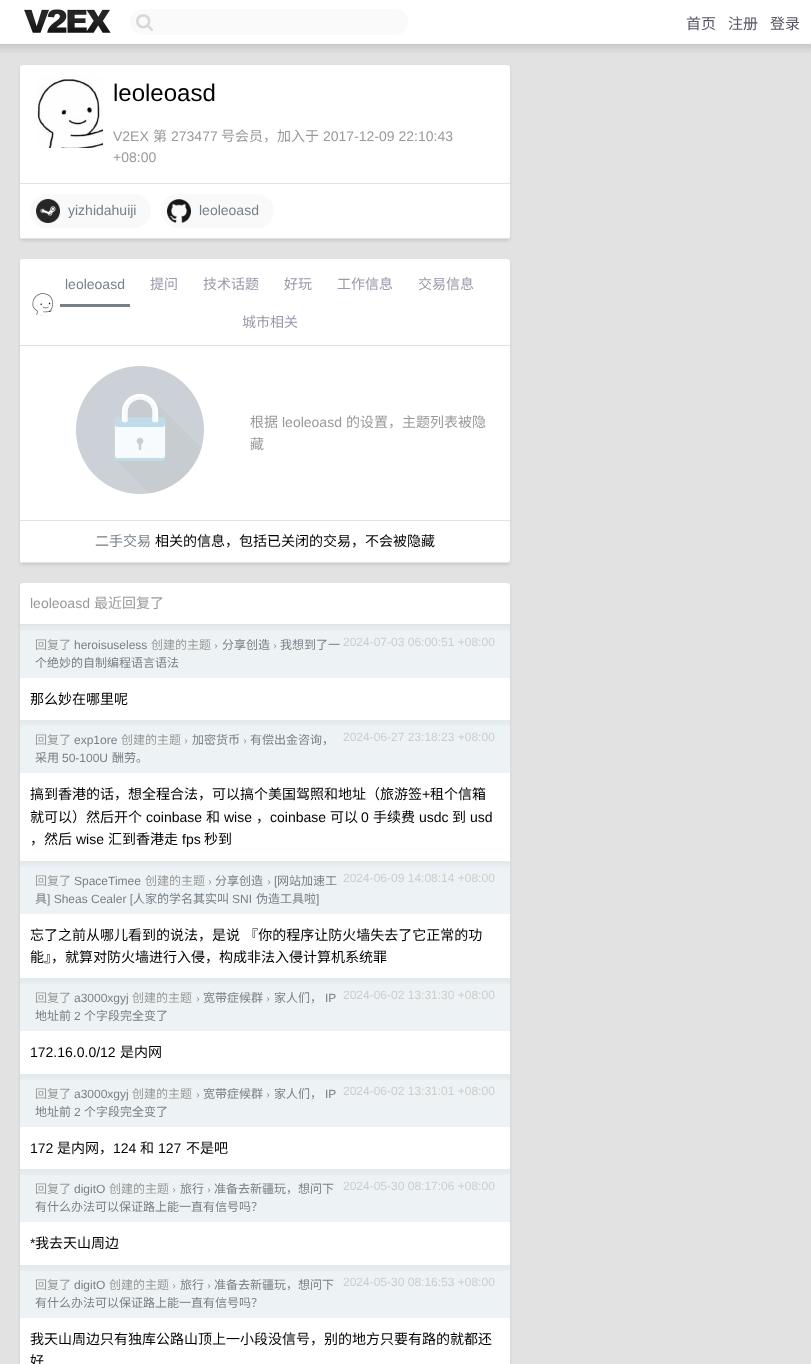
<?xml version="1.0" encoding="UTF-8"?>
<svg xmlns="http://www.w3.org/2000/svg" xmlns:xlink="http://www.w3.org/1999/xlink" width="811" height="1364">
  <rect width="100%" height="100%" fill="#ffffff" />
  <rect y="44" width="811" height="1" fill="#c7c7c7" />
  <image x="24" y="9" width="87" height="24" xlink:href="image1.png" />
  <rect x="130" y="9" width="278" height="26" rx="13" fill="#fafafa" />
  <image x="136" y="14" width="17" height="17" xlink:href="image2.png" />
  <rect y="45" width="811" height="1319" fill="#e2e2e2" />
  <image x="0" y="45" width="811" height="8" xlink:href="image3.png" />
  <rect x="20" y="67" width="490" height="174" rx="3" fill="#000000" fill-opacity="0.1" filter="blur(1.5px)" />
  <rect x="20" y="65" width="490" height="174" rx="3" fill="#ffffff" />
  <rect x="22" y="238" width="487" height="1" fill="#e2e2e2" />
  <rect x="20" y="183" width="490" height="1" fill="#e2e2e2" />
  <image x="37" y="75" width="66" height="73" xlink:href="image4.png" />
  <rect x="30" y="194" width="121" height="34" rx="17" fill="#f9f9f9" />
  <image x="36" y="199" width="24" height="24" xlink:href="image5.png" />
  <rect x="161" y="194" width="113" height="34" rx="17" fill="#f9f9f9" />
  <image x="167" y="199" width="24" height="24" xlink:href="image6.png" />
  <rect x="20" y="261" width="490" height="304" rx="3" fill="#000000" fill-opacity="0.1" filter="blur(1.5px)" />
  <rect x="20" y="259" width="490" height="304" rx="3" fill="#ffffff" />
  <rect x="22" y="562" width="487" height="1" fill="#e2e2e2" />
  <rect x="20" y="345" width="490" height="1" fill="#e2e2e2" />
  <image x="32" y="293" width="21" height="23" xlink:href="image7.png" />
  <rect x="60" y="304" width="70" height="3" fill="#778087" />
  <rect x="20" y="520" width="490" height="1" fill="#e2e2e2" />
  <image x="76" y="366" width="128" height="128" xlink:href="image8.png" />
  <rect x="20" y="585" width="490" height="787" rx="3" fill="#000000" fill-opacity="0.1" filter="blur(1.5px)" />
  <rect x="20" y="583" width="490" height="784" rx="3" fill="#ffffff" />
  <rect x="20" y="624" width="490" height="1" fill="#e2e2e2" />
  <rect x="20" y="625" width="490" height="53" fill="#edf3f5" />
  <image x="20" y="625" width="490" height="6" xlink:href="image9.png" />
  <rect x="20" y="720" width="490" height="53" fill="#edf3f5" />
  <image x="20" y="720" width="490" height="6" xlink:href="image9.png" />
  <rect x="20" y="861" width="490" height="53" fill="#edf3f5" />
  <image x="20" y="861" width="490" height="6" xlink:href="image9.png" />
  <rect x="20" y="978" width="490" height="53" fill="#edf3f5" />
  <image x="20" y="978" width="490" height="6" xlink:href="image9.png" />
  <rect x="20" y="1074" width="490" height="53" fill="#edf3f5" />
  <image x="20" y="1074" width="490" height="6" xlink:href="image9.png" />
  <rect x="20" y="1169" width="490" height="53" fill="#edf3f5" />
  <image x="20" y="1169" width="490" height="6" xlink:href="image9.png" />
  <rect x="20" y="1265" width="490" height="53" fill="#edf3f5" />
  <image x="20" y="1265" width="490" height="6" xlink:href="image9.png" />
  <text x="686" y="29" style="font-family: Noto Sans CJK SC; font-size: 15px; fill: #555566">首页</text>
  <text x="728" y="29" style="font-family: Noto Sans CJK SC; font-size: 15px; fill: #555566">注册</text>
  <text x="770" y="29" style="font-family: Noto Sans CJK SC; font-size: 15px; fill: #555566">登录</text>
  <text x="113" y="101" style="font-family: Liberation Sans; font-size: 24px; fill: #000000">leoleoasd</text>
  <text x="113" y="141" style="font-family: Liberation Sans; font-size: 14px; fill: #999999">V2EX</text>
  <text x="153" y="141" style="font-family: Noto Sans CJK SC; font-size: 14px; fill: #999999">第</text>
  <text x="171" y="141" style="font-family: Liberation Sans; font-size: 14px; fill: #999999">273477</text>
  <text x="221" y="141" style="font-family: Noto Sans CJK SC; font-size: 14px; fill: #999999">号会员，加入于</text>
  <text x="323" y="141" style="font-family: Liberation Sans; font-size: 14px; fill: #999999">2017-12-09 22:10:43</text>
  <text x="113" y="162" style="font-family: Liberation Sans; font-size: 14px; fill: #999999">+08:00</text>
  <text x="68" y="215" style="font-family: Liberation Sans; font-size: 14px; fill: #778087">yizhidahuiji</text>
  <text x="199" y="215" style="font-family: Liberation Sans; font-size: 14px; fill: #778087">leoleoasd</text>
  <text x="65" y="289" style="font-family: Liberation Sans; font-size: 14px; fill: #778087">leoleoasd</text>
  <text x="150" y="289" style="font-family: Noto Sans CJK SC; font-size: 14px; fill: #9999aa">提问</text>
  <text x="203" y="289" style="font-family: Noto Sans CJK SC; font-size: 14px; fill: #9999aa">技术话题</text>
  <text x="284" y="289" style="font-family: Noto Sans CJK SC; font-size: 14px; fill: #9999aa">好玩</text>
  <text x="337" y="289" style="font-family: Noto Sans CJK SC; font-size: 14px; fill: #9999aa">工作信息</text>
  <text x="418" y="289" style="font-family: Noto Sans CJK SC; font-size: 14px; fill: #9999aa">交易信息</text>
  <text x="242" y="327" style="font-family: Noto Sans CJK SC; font-size: 14px; fill: #9999aa">城市相关</text>
  <text x="250" y="427" style="font-family: Noto Sans CJK SC; font-size: 14px; fill: #999999">根据</text>
  <text x="282" y="427" style="font-family: Liberation Sans; font-size: 14px; fill: #999999">leoleoasd</text>
  <text x="346" y="427" style="font-family: Noto Sans CJK SC; font-size: 14px; fill: #999999">的设置，主题列表被隐</text>
  <text x="250" y="449" style="font-family: Noto Sans CJK SC; font-size: 14px; fill: #999999">藏</text>
  <text x="95" y="546" style="font-family: Noto Sans CJK SC; font-size: 14px; fill: #778087">二手交易</text>
  <text x="155" y="546" style="font-family: Noto Sans CJK SC; font-size: 14px; fill: #000000">相关的信息，包括已关闭的交易，不会被隐藏</text>
  <text x="30" y="608" style="font-family: Liberation Sans; font-size: 14px; fill: #999999">leoleoasd</text>
  <text x="94" y="608" style="font-family: Noto Sans CJK SC; font-size: 14px; fill: #999999">最近回复了</text>
  <text x="35" y="649" style="font-family: Noto Sans CJK SC; font-size: 12px; fill: #999999">回复了</text>
  <text x="74" y="649" style="font-family: Liberation Sans; font-size: 12px; fill: #778087">heroisuseless</text>
  <text x="151" y="649" style="font-family: Noto Sans CJK SC; font-size: 12px; fill: #999999">创建的主题</text>
  <text x="214" y="649" style="font-family: Liberation Serif; font-size: 12px; fill: #999999">›</text>
  <text x="222" y="649" style="font-family: Noto Sans CJK SC; font-size: 12px; fill: #778087">分享创造</text>
  <text x="273" y="649" style="font-family: Liberation Serif; font-size: 12px; fill: #999999">›</text>
  <text x="280" y="649" style="font-family: Noto Sans CJK SC; font-size: 12px; fill: #778087">我想到了一</text>
  <text x="343" y="646" style="font-family: Liberation Sans; font-size: 12px; fill: #cccccc">2024-07-03 06:00:51 +08:00</text>
  <text x="35" y="667" style="font-family: Noto Sans CJK SC; font-size: 12px; fill: #778087">个绝妙的自制编程语言语法</text>
  <text x="30" y="704" style="font-family: Noto Sans CJK SC; font-size: 14px; fill: #000000">那么妙在哪里呢</text>
  <text x="35" y="744" style="font-family: Noto Sans CJK SC; font-size: 12px; fill: #999999">回复了</text>
  <text x="74" y="744" style="font-family: Liberation Sans; font-size: 12px; fill: #778087">exp1ore</text>
  <text x="121" y="744" style="font-family: Noto Sans CJK SC; font-size: 12px; fill: #999999">创建的主题</text>
  <text x="184" y="744" style="font-family: Liberation Serif; font-size: 12px; fill: #999999">›</text>
  <text x="192" y="744" style="font-family: Noto Sans CJK SC; font-size: 12px; fill: #778087">加密货币</text>
  <text x="243" y="744" style="font-family: Liberation Serif; font-size: 12px; fill: #999999">›</text>
  <text x="250" y="744" style="font-family: Noto Sans CJK SC; font-size: 12px; fill: #778087">有偿出金咨询，</text>
  <text x="343" y="741" style="font-family: Liberation Sans; font-size: 12px; fill: #cccccc">2024-06-27 23:18:23 +08:00</text>
  <text x="35" y="762" style="font-family: Noto Sans CJK SC; font-size: 12px; fill: #778087">采用</text>
  <text x="62" y="762" style="font-family: Liberation Sans; font-size: 12px; fill: #778087">50-100U</text>
  <text x="112" y="762" style="font-family: Noto Sans CJK SC; font-size: 12px; fill: #778087">酬劳。</text>
  <text x="30" y="799" style="font-family: Noto Sans CJK SC; font-size: 14px; fill: #000000">搞到香港的话，想全程合法，可以搞个美国驾照和地址（旅游签</text>
  <text x="422" y="799" style="font-family: Liberation Sans; font-size: 14px; fill: #000000">+</text>
  <text x="430" y="799" style="font-family: Noto Sans CJK SC; font-size: 14px; fill: #000000">租个信箱</text>
  <text x="30" y="822" style="font-family: Noto Sans CJK SC; font-size: 14px; fill: #000000">就可以）然后开个</text>
  <text x="146" y="822" style="font-family: Liberation Sans; font-size: 14px; fill: #000000">coinbase</text>
  <text x="206" y="822" style="font-family: Noto Sans CJK SC; font-size: 14px; fill: #000000">和</text>
  <text x="224" y="822" style="font-family: Liberation Sans; font-size: 14px; fill: #000000">wise</text>
  <text x="256" y="822" style="font-family: Noto Sans CJK SC; font-size: 14px; fill: #000000">，</text>
  <text x="270" y="822" style="font-family: Liberation Sans; font-size: 14px; fill: #000000">coinbase</text>
  <text x="330" y="822" style="font-family: Noto Sans CJK SC; font-size: 14px; fill: #000000">可以</text>
  <text x="361" y="822" style="font-family: Liberation Sans; font-size: 14px; fill: #000000">0</text>
  <text x="373" y="822" style="font-family: Noto Sans CJK SC; font-size: 14px; fill: #000000">手续费</text>
  <text x="419" y="822" style="font-family: Liberation Sans; font-size: 14px; fill: #000000">usdc</text>
  <text x="452" y="822" style="font-family: Noto Sans CJK SC; font-size: 14px; fill: #000000">到</text>
  <text x="470" y="822" style="font-family: Liberation Sans; font-size: 14px; fill: #000000">usd</text>
  <text x="30" y="844" style="font-family: Noto Sans CJK SC; font-size: 14px; fill: #000000">，然后</text>
  <text x="76" y="844" style="font-family: Liberation Sans; font-size: 14px; fill: #000000">wise</text>
  <text x="108" y="844" style="font-family: Noto Sans CJK SC; font-size: 14px; fill: #000000">汇到香港走</text>
  <text x="182" y="844" style="font-family: Liberation Sans; font-size: 14px; fill: #000000">fps</text>
  <text x="204" y="844" style="font-family: Noto Sans CJK SC; font-size: 14px; fill: #000000">秒到</text>
  <text x="35" y="885" style="font-family: Noto Sans CJK SC; font-size: 12px; fill: #999999">回复了</text>
  <text x="74" y="885" style="font-family: Liberation Sans; font-size: 12px; fill: #778087">SpaceTimee</text>
  <text x="145" y="885" style="font-family: Noto Sans CJK SC; font-size: 12px; fill: #999999">创建的主题</text>
  <text x="208" y="885" style="font-family: Liberation Serif; font-size: 12px; fill: #999999">›</text>
  <text x="215" y="885" style="font-family: Noto Sans CJK SC; font-size: 12px; fill: #778087">分享创造</text>
  <text x="267" y="885" style="font-family: Liberation Serif; font-size: 12px; fill: #999999">›</text>
  <text x="274" y="885" style="font-family: Liberation Sans; font-size: 12px; fill: #778087">[</text>
  <text x="277" y="885" style="font-family: Noto Sans CJK SC; font-size: 12px; fill: #778087">网站加速工</text>
  <text x="343" y="882" style="font-family: Liberation Sans; font-size: 12px; fill: #cccccc">2024-06-09 14:08:14 +08:00</text>
  <text x="35" y="903" style="font-family: Noto Sans CJK SC; font-size: 12px; fill: #778087">具</text>
  <text x="47" y="903" style="font-family: Liberation Sans; font-size: 12px; fill: #778087">] Sheas Cealer [</text>
  <text x="133" y="903" style="font-family: Noto Sans CJK SC; font-size: 12px; fill: #778087">人家的学名其实叫</text>
  <text x="232" y="903" style="font-family: Liberation Sans; font-size: 12px; fill: #778087">SNI</text>
  <text x="256" y="903" style="font-family: Noto Sans CJK SC; font-size: 12px; fill: #778087">伪造工具啦</text>
  <text x="316" y="903" style="font-family: Liberation Sans; font-size: 12px; fill: #778087">]</text>
  <text x="30" y="940" word-spacing="1" style="font-family: Noto Sans CJK SC; font-size: 14px; fill: #000000">忘了之前从哪儿看到的说法，是说 『你的程序让防火墙失去了它正常的功</text>
  <text x="30" y="962" style="font-family: Noto Sans CJK SC; font-size: 14px; fill: #000000">能』，就算对防火墙进行入侵，构成非法入侵计算机系统罪</text>
  <text x="35" y="1002" style="font-family: Noto Sans CJK SC; font-size: 12px; fill: #999999">回复了</text>
  <text x="74" y="1002" style="font-family: Liberation Sans; font-size: 12px; fill: #778087">a3000xgyj</text>
  <text x="132" y="1002" style="font-family: Noto Sans CJK SC; font-size: 12px; fill: #999999">创建的主题</text>
  <text x="196" y="1002" style="font-family: Liberation Serif; font-size: 12px; fill: #999999">›</text>
  <text x="203" y="1002" style="font-family: Noto Sans CJK SC; font-size: 12px; fill: #778087">宽带症候群</text>
  <text x="266" y="1002" style="font-family: Liberation Serif; font-size: 12px; fill: #999999">›</text>
  <text x="274" y="1002" style="font-family: Noto Sans CJK SC; font-size: 12px; fill: #778087">家人们，</text>
  <text x="325" y="1002" style="font-family: Liberation Sans; font-size: 12px; fill: #778087">IP</text>
  <text x="343" y="999" style="font-family: Liberation Sans; font-size: 12px; fill: #cccccc">2024-06-02 13:31:30 +08:00</text>
  <text x="35" y="1020" style="font-family: Noto Sans CJK SC; font-size: 12px; fill: #778087">地址前</text>
  <text x="74" y="1020" style="font-family: Liberation Sans; font-size: 12px; fill: #778087">2</text>
  <text x="84" y="1020" style="font-family: Noto Sans CJK SC; font-size: 12px; fill: #778087">个字段完全变了</text>
  <text x="30" y="1057" style="font-family: Liberation Sans; font-size: 14px; fill: #000000">172.16.0.0/12</text>
  <text x="120" y="1057" style="font-family: Noto Sans CJK SC; font-size: 14px; fill: #000000">是内网</text>
  <text x="35" y="1098" style="font-family: Noto Sans CJK SC; font-size: 12px; fill: #999999">回复了</text>
  <text x="74" y="1098" style="font-family: Liberation Sans; font-size: 12px; fill: #778087">a3000xgyj</text>
  <text x="132" y="1098" style="font-family: Noto Sans CJK SC; font-size: 12px; fill: #999999">创建的主题</text>
  <text x="196" y="1098" style="font-family: Liberation Serif; font-size: 12px; fill: #999999">›</text>
  <text x="203" y="1098" style="font-family: Noto Sans CJK SC; font-size: 12px; fill: #778087">宽带症候群</text>
  <text x="266" y="1098" style="font-family: Liberation Serif; font-size: 12px; fill: #999999">›</text>
  <text x="274" y="1098" style="font-family: Noto Sans CJK SC; font-size: 12px; fill: #778087">家人们，</text>
  <text x="325" y="1098" style="font-family: Liberation Sans; font-size: 12px; fill: #778087">IP</text>
  <text x="343" y="1095" style="font-family: Liberation Sans; font-size: 12px; fill: #cccccc">2024-06-02 13:31:01 +08:00</text>
  <text x="35" y="1116" style="font-family: Noto Sans CJK SC; font-size: 12px; fill: #778087">地址前</text>
  <text x="74" y="1116" style="font-family: Liberation Sans; font-size: 12px; fill: #778087">2</text>
  <text x="84" y="1116" style="font-family: Noto Sans CJK SC; font-size: 12px; fill: #778087">个字段完全变了</text>
  <text x="30" y="1153" style="font-family: Liberation Sans; font-size: 14px; fill: #000000">172</text>
  <text x="57" y="1153" style="font-family: Noto Sans CJK SC; font-size: 14px; fill: #000000">是内网，</text>
  <text x="113" y="1153" style="font-family: Liberation Sans; font-size: 14px; fill: #000000">124</text>
  <text x="140" y="1153" style="font-family: Noto Sans CJK SC; font-size: 14px; fill: #000000">和</text>
  <text x="158" y="1153" style="font-family: Liberation Sans; font-size: 14px; fill: #000000">127</text>
  <text x="186" y="1153" style="font-family: Noto Sans CJK SC; font-size: 14px; fill: #000000">不是吧</text>
  <text x="35" y="1193" style="font-family: Noto Sans CJK SC; font-size: 12px; fill: #999999">回复了</text>
  <text x="74" y="1193" style="font-family: Liberation Sans; font-size: 12px; fill: #778087">digitO</text>
  <text x="109" y="1193" style="font-family: Noto Sans CJK SC; font-size: 12px; fill: #999999">创建的主题</text>
  <text x="172" y="1193" style="font-family: Liberation Serif; font-size: 12px; fill: #999999">›</text>
  <text x="180" y="1193" style="font-family: Noto Sans CJK SC; font-size: 12px; fill: #778087">旅行</text>
  <text x="207" y="1193" style="font-family: Liberation Serif; font-size: 12px; fill: #999999">›</text>
  <text x="214" y="1193" style="font-family: Noto Sans CJK SC; font-size: 12px; fill: #778087">准备去新疆玩，想问下</text>
  <text x="343" y="1190" style="font-family: Liberation Sans; font-size: 12px; fill: #cccccc">2024-05-30 08:17:06 +08:00</text>
  <text x="35" y="1211" style="font-family: Noto Sans CJK SC; font-size: 12px; fill: #778087">有什么办法可以保证路上能一直有信号吗？</text>
  <text x="30" y="1248" style="font-family: Liberation Sans; font-size: 14px; fill: #000000">*</text>
  <text x="35" y="1248" style="font-family: Noto Sans CJK SC; font-size: 14px; fill: #000000">我去天山周边</text>
  <text x="35" y="1289" style="font-family: Noto Sans CJK SC; font-size: 12px; fill: #999999">回复了</text>
  <text x="74" y="1289" style="font-family: Liberation Sans; font-size: 12px; fill: #778087">digitO</text>
  <text x="109" y="1289" style="font-family: Noto Sans CJK SC; font-size: 12px; fill: #999999">创建的主题</text>
  <text x="172" y="1289" style="font-family: Liberation Serif; font-size: 12px; fill: #999999">›</text>
  <text x="180" y="1289" style="font-family: Noto Sans CJK SC; font-size: 12px; fill: #778087">旅行</text>
  <text x="207" y="1289" style="font-family: Liberation Serif; font-size: 12px; fill: #999999">›</text>
  <text x="214" y="1289" style="font-family: Noto Sans CJK SC; font-size: 12px; fill: #778087">准备去新疆玩，想问下</text>
  <text x="343" y="1286" style="font-family: Liberation Sans; font-size: 12px; fill: #cccccc">2024-05-30 08:16:53 +08:00</text>
  <text x="35" y="1307" style="font-family: Noto Sans CJK SC; font-size: 12px; fill: #778087">有什么办法可以保证路上能一直有信号吗？</text>
  <text x="30" y="1344" style="font-family: Noto Sans CJK SC; font-size: 14px; fill: #000000">我天山周边只有独库公路山顶上一小段没信号，别的地方只要有路的就都还</text>
  <text x="30" y="1366" style="font-family: Noto Sans CJK SC; font-size: 14px; fill: #000000">好</text>
</svg>
